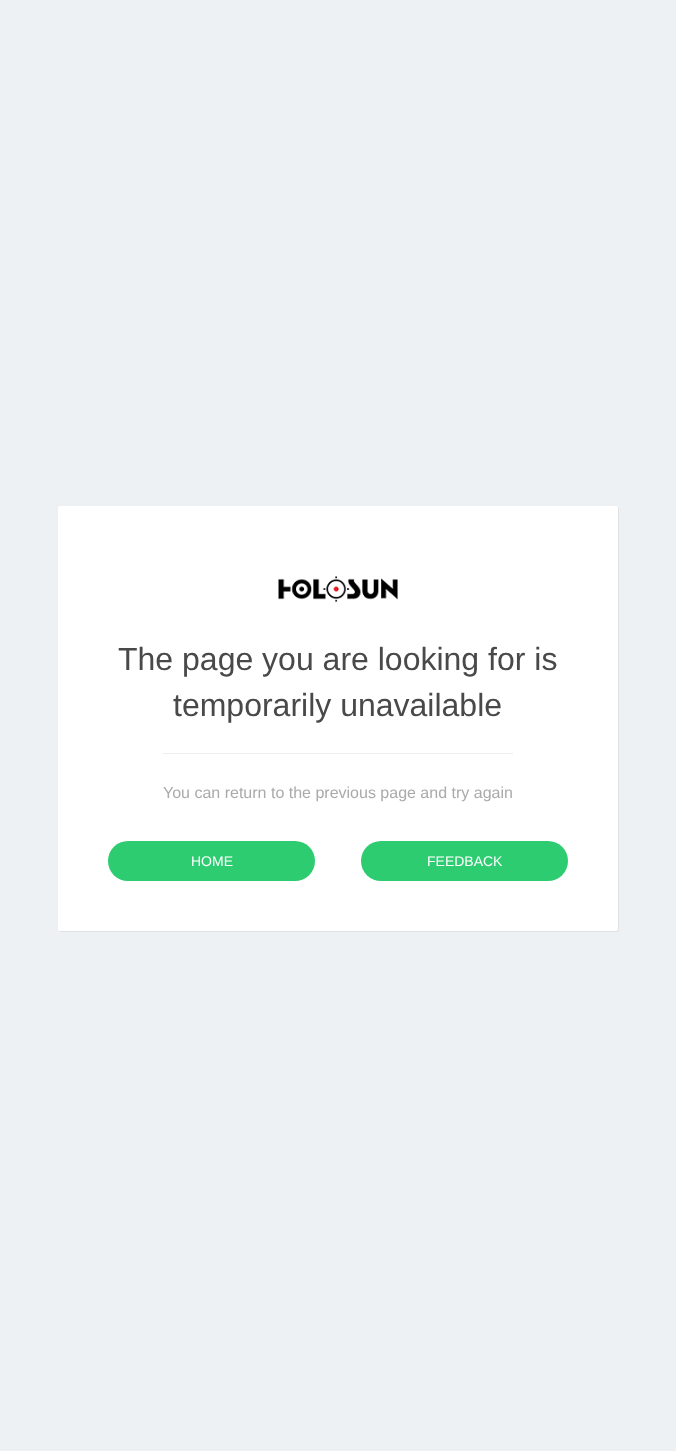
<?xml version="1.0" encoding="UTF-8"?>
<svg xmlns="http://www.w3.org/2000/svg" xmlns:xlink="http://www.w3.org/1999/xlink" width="676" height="1451">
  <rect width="100%" height="100%" fill="#edf1f4" />
  <rect x="59" y="507" width="560" height="425" rx="2" fill="#636363" fill-opacity="0.1" filter="blur(0.5px)" />
  <rect x="58" y="506" width="560" height="425" rx="2" fill="#ffffff" />
  <image x="278" y="576" width="120" height="26" xlink:href="image1.png" />
  <rect x="163" y="753" width="350" height="1" fill="#eeeeee" />
  <rect x="108" y="841" width="207" height="40" rx="20" fill="#2ecc71" />
  <rect x="361" y="841" width="207" height="40" rx="20" fill="#2ecc71" />
  <text x="118" y="670" style="font-family: Liberation Sans; font-size: 32px; fill: #494949">The page you are looking for is</text>
  <text x="173" y="716" style="font-family: Liberation Sans; font-size: 32px; fill: #494949">temporarily unavailable</text>
  <text x="163" y="798" style="font-family: Liberation Sans; font-size: 16px; fill: #aaaaaa">You can return to the previous page and try again</text>
  <text x="191" y="866" style="font-family: Liberation Sans; font-size: 14px; fill: #ffffff">HOME</text>
  <text x="427" y="866" style="font-family: Liberation Sans; font-size: 14px; fill: #ffffff">FEEDBACK</text>
</svg>
